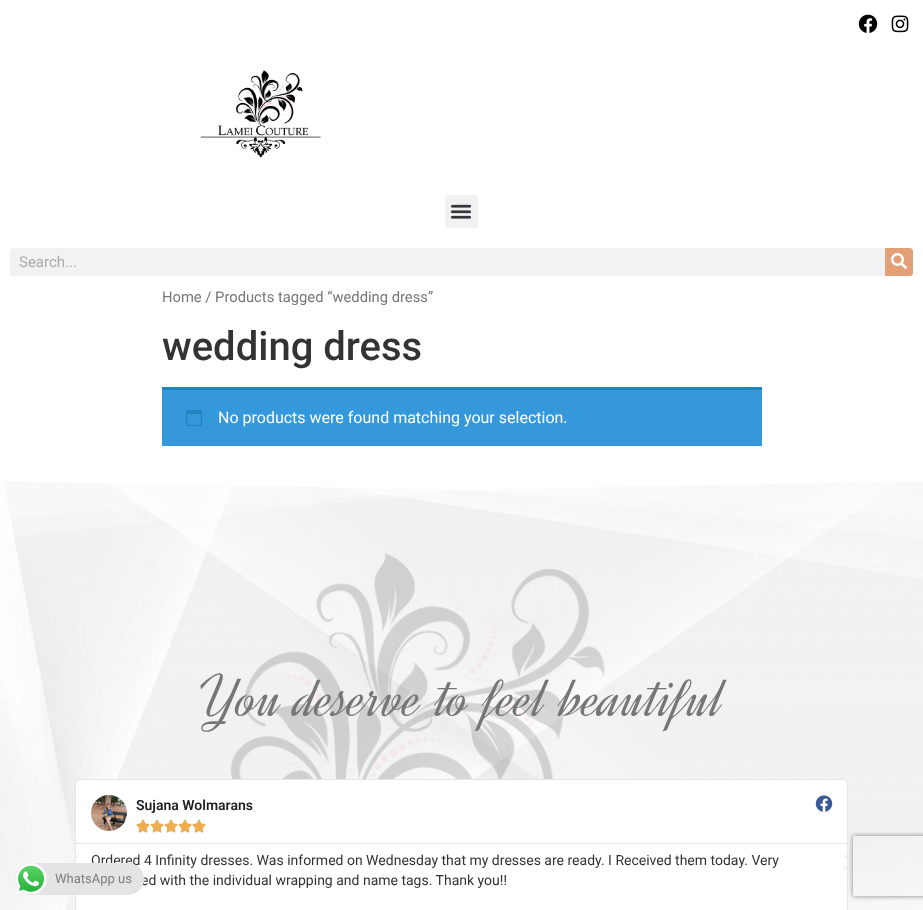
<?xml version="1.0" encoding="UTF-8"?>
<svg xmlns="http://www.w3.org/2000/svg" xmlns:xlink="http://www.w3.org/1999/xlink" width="923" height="910">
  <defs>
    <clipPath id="clip1"><path d="M 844 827 h 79 v 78 h -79 z m 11 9 h 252 c 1 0 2 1 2 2 v 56 c 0 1 -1 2 -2 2 h -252 c -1 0 -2 -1 -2 -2 v -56 c 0 -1 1 -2 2 -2 z" clip-rule="evenodd" /></clipPath>
  </defs>
  <rect width="100%" height="100%" fill="#ffffff" />
  <image x="858" y="14" width="20" height="19" xlink:href="image1.png" />
  <image x="891" y="15" width="18" height="18" xlink:href="image2.png" />
  <image x="200" y="70" width="121" height="88" xlink:href="image3.png" />
  <rect x="445" y="195" width="33" height="33" rx="3" fill="#f2f2f2" />
  <image x="450" y="204" width="22" height="15" xlink:href="image4.png" />
  <rect x="10" y="248" width="903" height="28" rx="3" fill="#f1f2f3" />
  <path d="M 885 248 h 25 c 1.5 0 3 1.5 3 3 v 22 c 0 1.5 -1.5 3 -3 3 h -25 z" fill="#e39f76" />
  <image x="891" y="253" width="16" height="16" xlink:href="image5.png" />
  <rect x="162" y="390" width="600" height="56" fill="#3498db" />
  <rect x="162" y="387" width="600" height="3" fill="#1e85be" />
  <image x="186" y="410" width="16" height="16" xlink:href="image6.png" />
  <image x="0" y="481" width="923" height="429" xlink:href="image7.png" />
  <path d="M 0 477 v 61 l 462 -48 l 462 48 v -61 z" fill="#ffffff" fill-opacity="0.33" />
  <path d="M 0 477 v 41 l 462 -28 l 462 28 v -41 z" fill="#ffffff" fill-opacity="0.33" />
  <path d="M 0 477 v 4 l 462 9 l 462 -9 v -4 z" fill="#ffffff" />
  <image x="230" y="553" width="375" height="226" xlink:href="image8.png" />
  <rect x="75.5" y="779.5" width="772" height="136" rx="4.5" fill="#ffffff" stroke="#e1e8ed" />
  <image x="71" y="854" width="8" height="9" xlink:href="image9.png" />
  <rect x="76" y="843" width="771" height="1" fill="#e1e8ed" />
  <image x="91" y="795" width="36" height="36" xlink:href="image10.png" />
  <image x="136" y="819" width="14" height="14" xlink:href="image11.png" />
  <image x="136" y="819" width="14" height="14" xlink:href="image12.png" />
  <image x="150" y="819" width="14" height="14" xlink:href="image11.png" />
  <image x="150" y="819" width="14" height="14" xlink:href="image12.png" />
  <image x="164" y="819" width="14" height="14" xlink:href="image11.png" />
  <image x="164" y="819" width="14" height="14" xlink:href="image12.png" />
  <image x="178" y="819" width="14" height="14" xlink:href="image11.png" />
  <image x="178" y="819" width="14" height="14" xlink:href="image12.png" />
  <image x="192" y="819" width="14" height="14" xlink:href="image11.png" />
  <image x="192" y="819" width="14" height="14" xlink:href="image12.png" />
  <image x="815" y="795" width="18" height="17" xlink:href="image13.png" />
  <image x="844" y="854" width="8" height="16" xlink:href="image14.png" />
  <g clip-path="url(#clip1)">
    <rect x="853" y="836" width="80" height="60" rx="2" fill="#808080" filter="blur(2.5px)" />
  </g>
  <text x="19" y="267" style="font-family: Roboto; font-size: 15px; fill: #aaaaaa">Search...</text>
  <text x="162" y="302" style="font-family: Roboto; font-size: 14.75px; fill: #767676">Home / Products tagged “wedding dress”</text>
  <text x="162" y="360" style="font-family: Roboto; font-size: 40px; font-weight: 500; fill: #333333">wedding dress</text>
  <text x="218" y="423" style="font-family: Roboto; font-size: 16px; fill: #ffffff">No products were found matching your selection.</text>
  <text x="199" y="716" style="font-family: Dynalight; font-size: 61px; font-weight: 300; fill: #767676">You deserve to feel beautiful</text>
  <text x="136" y="810" style="font-family: Roboto; font-size: 14px; font-weight: 600; fill: #1c2022">Sujana Wolmarans</text>
  <text x="91" y="865" style="font-family: Roboto; font-size: 14px; fill: #333333">Ordered 4 Infinity dresses. Was informed on Wednesday that my dresses are ready. I Received them today. Very</text>
  <text x="141" y="885" style="font-family: Roboto; font-size: 14px; fill: #333333">ed with the individual wrapping and name tags. Thank you!!</text>
  <rect x="15" y="863" width="129" height="32" rx="16" fill="#e4e4e4" />
  <image x="15" y="863" width="32" height="32" xlink:href="image15.png" />
  <text x="55" y="883" style="font-family: Roboto; font-size: 13px; fill: #7f7d7d">WhatsApp us</text>
</svg>
